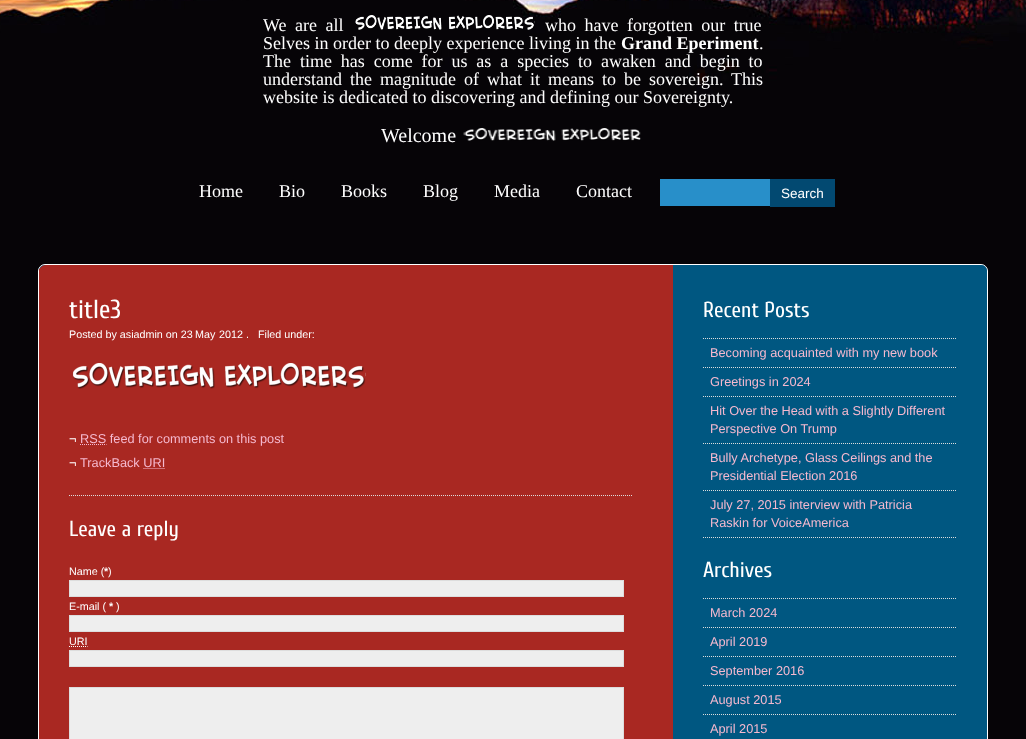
<?xml version="1.0" encoding="UTF-8"?>
<svg xmlns="http://www.w3.org/2000/svg" xmlns:xlink="http://www.w3.org/1999/xlink" width="1026" height="739">
  <rect width="100%" height="100%" fill="#ffffff" />
  <image x="0" y="0" width="1026" height="739" xlink:href="image1.png" />
  <image x="355" y="15" width="180" height="15" xlink:href="image2.png" />
  <image x="463" y="128" width="178" height="13" xlink:href="image3.png" />
  <rect x="660" y="179" width="110" height="27" fill="#288fc9" />
  <rect x="770" y="179" width="65" height="28" fill="#024971" />
  <rect x="38.5" y="264.5" width="949" height="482" rx="6.5" fill="#005781" stroke="#ffffff" />
  <rect x="39" y="269" width="1" height="3" fill="#a92822" />
  <path d="M 46 265 h 627 v 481 h -627 c -4 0 -7 -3 -7 -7 v -467 c 0 -4 3 -7 7 -7 z" fill="#a92822" />
  <image x="72" y="363" width="294" height="26" xlink:href="image4.png" />
  <path d="M 80 444.5 h 26.5" fill="none" stroke="#f5b9cf" stroke-dasharray="1 1" />
  <path d="M 143.5 468.5 h 22" fill="none" stroke="#f5b9cf" stroke-dasharray="1 1" />
  <path d="M 69 495.5 h 564" fill="none" stroke="#dddddd" stroke-dasharray="1 1" />
  <rect x="69.5" y="580.5" width="554" height="16" fill="#eeeeee" stroke="#dddddd" />
  <rect x="69.5" y="615.5" width="554" height="16" fill="#eeeeee" stroke="#dddddd" />
  <path d="M 69 646.5 h 18.5" fill="none" stroke="#ffffff" stroke-dasharray="1 1" />
  <rect x="69.5" y="650.5" width="554" height="16" fill="#eeeeee" stroke="#dddddd" />
  <rect x="69.5" y="687.5" width="554" height="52" fill="#eeeeee" stroke="#dddddd" />
  <path d="M 673 265 h 307 c 4 0 7 3 7 7 v 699 c 0 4 -3 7 -7 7 h -307 z" fill="#005781" />
  <path d="M 703 338.5 h 254" fill="none" stroke="#dddddd" stroke-dasharray="1 1" />
  <path d="M 703 367.5 h 254" fill="none" stroke="#dddddd" stroke-dasharray="1 1" />
  <path d="M 703 396.5 h 254" fill="none" stroke="#dddddd" stroke-dasharray="1 1" />
  <path d="M 703 443.5 h 254" fill="none" stroke="#dddddd" stroke-dasharray="1 1" />
  <path d="M 703 490.5 h 254" fill="none" stroke="#dddddd" stroke-dasharray="1 1" />
  <path d="M 703 537.5 h 254" fill="none" stroke="#dddddd" stroke-dasharray="1 1" />
  <path d="M 703 598.5 h 254" fill="none" stroke="#dddddd" stroke-dasharray="1 1" />
  <path d="M 703 627.5 h 254" fill="none" stroke="#dddddd" stroke-dasharray="1 1" />
  <path d="M 703 656.5 h 254" fill="none" stroke="#dddddd" stroke-dasharray="1 1" />
  <path d="M 703 685.5 h 254" fill="none" stroke="#dddddd" stroke-dasharray="1 1" />
  <path d="M 703 714.5 h 254" fill="none" stroke="#dddddd" stroke-dasharray="1 1" />
  <text x="263" y="31" word-spacing="4" style="font-family: Liberation Serif; font-size: 18px; fill: #ffffff">We are all</text>
  <text x="545" y="31" word-spacing="4" style="font-family: Liberation Serif; font-size: 18px; fill: #ffffff">who have forgotten our true</text>
  <text x="263" y="49" style="font-family: Liberation Serif; font-size: 18px; fill: #ffffff">Selves in order to deeply experience living in the</text>
  <text x="621" y="49" style="font-family: Liberation Serif; font-size: 18px; font-weight: bold; fill: #ffffff">Grand Eperiment</text>
  <text x="759" y="49" style="font-family: Liberation Serif; font-size: 18px; fill: #ffffff">.</text>
  <text x="263" y="67" word-spacing="4.4" style="font-family: Liberation Serif; font-size: 18px; fill: #ffffff">The time has come for us as a species to awaken and begin to</text>
  <text x="263" y="85" word-spacing="3.5" style="font-family: Liberation Serif; font-size: 18px; fill: #ffffff">understand the magnitude of what it means to be sovereign.</text>
  <text x="731" y="85" style="font-family: Liberation Serif; font-size: 18px; fill: #ffffff">This</text>
  <text x="263" y="103" style="font-family: Liberation Serif; font-size: 18px; fill: #ffffff">website is dedicated to discovering and defining our Sovereignty.</text>
  <text x="381" y="142" style="font-family: Liberation Serif; font-size: 20px; fill: #ffffff">Welcome</text>
  <text x="199" y="197" style="font-family: Liberation Serif; font-size: 18px; fill: #ffffff">Home</text>
  <text x="279" y="197" style="font-family: Liberation Serif; font-size: 18px; fill: #ffffff">Bio</text>
  <text x="341" y="197" style="font-family: Liberation Serif; font-size: 18px; fill: #ffffff">Books</text>
  <text x="423" y="197" style="font-family: Liberation Serif; font-size: 18px; fill: #ffffff">Blog</text>
  <text x="494" y="197" style="font-family: Liberation Serif; font-size: 18px; fill: #ffffff">Media</text>
  <text x="576" y="197" style="font-family: Liberation Serif; font-size: 18px; fill: #ffffff">Contact</text>
  <text x="781" y="198" style="font-family: Liberation Sans; font-size: 13.5px; fill: #ffffff">Search</text>
  <text x="69" y="318" style="font-family: Cuprum; font-size: 26px; fill: #ffffff">title3</text>
  <text x="69" y="338" style="font-family: Liberation Sans; font-size: 10.75px; fill: #ffffff">Posted by asiadmin on 23</text>
  <text x="195" y="338" style="font-family: Liberation Sans; font-size: 10.75px; fill: #ffffff">May</text>
  <text x="219" y="338" style="font-family: Liberation Sans; font-size: 10.75px; fill: #ffffff">2012</text>
  <text x="246" y="338" style="font-family: Liberation Sans; font-size: 10.75px; fill: #ffffff" xml:space="preserve">.   Filed under:</text>
  <text x="69" y="443" style="font-family: Liberation Sans; font-size: 12.75px; fill: #ffffff">¬</text>
  <text x="80" y="443" style="font-family: Liberation Sans; font-size: 12.75px; fill: #f5b9cf">RSS feed for comments on this post</text>
  <text x="69" y="467" style="font-family: Liberation Sans; font-size: 12.75px; fill: #ffffff">¬</text>
  <text x="80" y="467" style="font-family: Liberation Sans; font-size: 12.75px; fill: #f5b9cf">TrackBack URI</text>
  <text x="69" y="536" style="font-family: Cuprum; font-size: 21.75px; fill: #ffffff">Leave a reply</text>
  <text x="69" y="575" style="font-family: Liberation Sans; font-size: 10.75px; fill: #ffffff">Name (</text>
  <text x="104" y="575" style="font-family: Liberation Sans; font-size: 10.75px; font-weight: bold; fill: #ffffff">*</text>
  <text x="108" y="575" style="font-family: Liberation Sans; font-size: 10.75px; fill: #ffffff">)</text>
  <text x="69" y="610" style="font-family: Liberation Sans; font-size: 10.75px; fill: #ffffff">E-mail (</text>
  <text x="109" y="610" style="font-family: Liberation Sans; font-size: 10.75px; font-weight: bold; fill: #ffffff">*</text>
  <text x="116" y="610" style="font-family: Liberation Sans; font-size: 10.75px; fill: #ffffff">)</text>
  <text x="69" y="645" style="font-family: Liberation Sans; font-size: 10.75px; fill: #ffffff">URI</text>
  <text x="703" y="317" style="font-family: Cuprum; font-size: 21.75px; fill: #ffffff">Recent Posts</text>
  <text x="710" y="357" style="font-family: Liberation Sans; font-size: 12.75px; fill: #f5b9cf">Becoming acquainted with my new book</text>
  <text x="710" y="386" style="font-family: Liberation Sans; font-size: 12.75px; fill: #f5b9cf">Greetings in 2024</text>
  <text x="710" y="415" style="font-family: Liberation Sans; font-size: 12.75px; fill: #f5b9cf">Hit Over the Head with a Slightly Different</text>
  <text x="710" y="433" style="font-family: Liberation Sans; font-size: 12.75px; fill: #f5b9cf">Perspective On Trump</text>
  <text x="710" y="462" style="font-family: Liberation Sans; font-size: 12.75px; fill: #f5b9cf">Bully Archetype, Glass Ceilings and the</text>
  <text x="710" y="480" style="font-family: Liberation Sans; font-size: 12.75px; fill: #f5b9cf">Presidential Election 2016</text>
  <text x="710" y="509" style="font-family: Liberation Sans; font-size: 12.75px; fill: #f5b9cf">July 27, 2015 interview with Patricia</text>
  <text x="710" y="527" style="font-family: Liberation Sans; font-size: 12.75px; fill: #f5b9cf">Raskin for VoiceAmerica</text>
  <text x="703" y="577" style="font-family: Cuprum; font-size: 21.75px; fill: #ffffff">Archives</text>
  <text x="710" y="617" style="font-family: Liberation Sans; font-size: 12.75px; fill: #f5b9cf">March 2024</text>
  <text x="710" y="646" style="font-family: Liberation Sans; font-size: 12.75px; fill: #f5b9cf">April 2019</text>
  <text x="710" y="675" style="font-family: Liberation Sans; font-size: 12.75px; fill: #f5b9cf">September 2016</text>
  <text x="710" y="704" style="font-family: Liberation Sans; font-size: 12.75px; fill: #f5b9cf">August 2015</text>
  <text x="710" y="733" style="font-family: Liberation Sans; font-size: 12.75px; fill: #f5b9cf">April 2015</text>
</svg>
